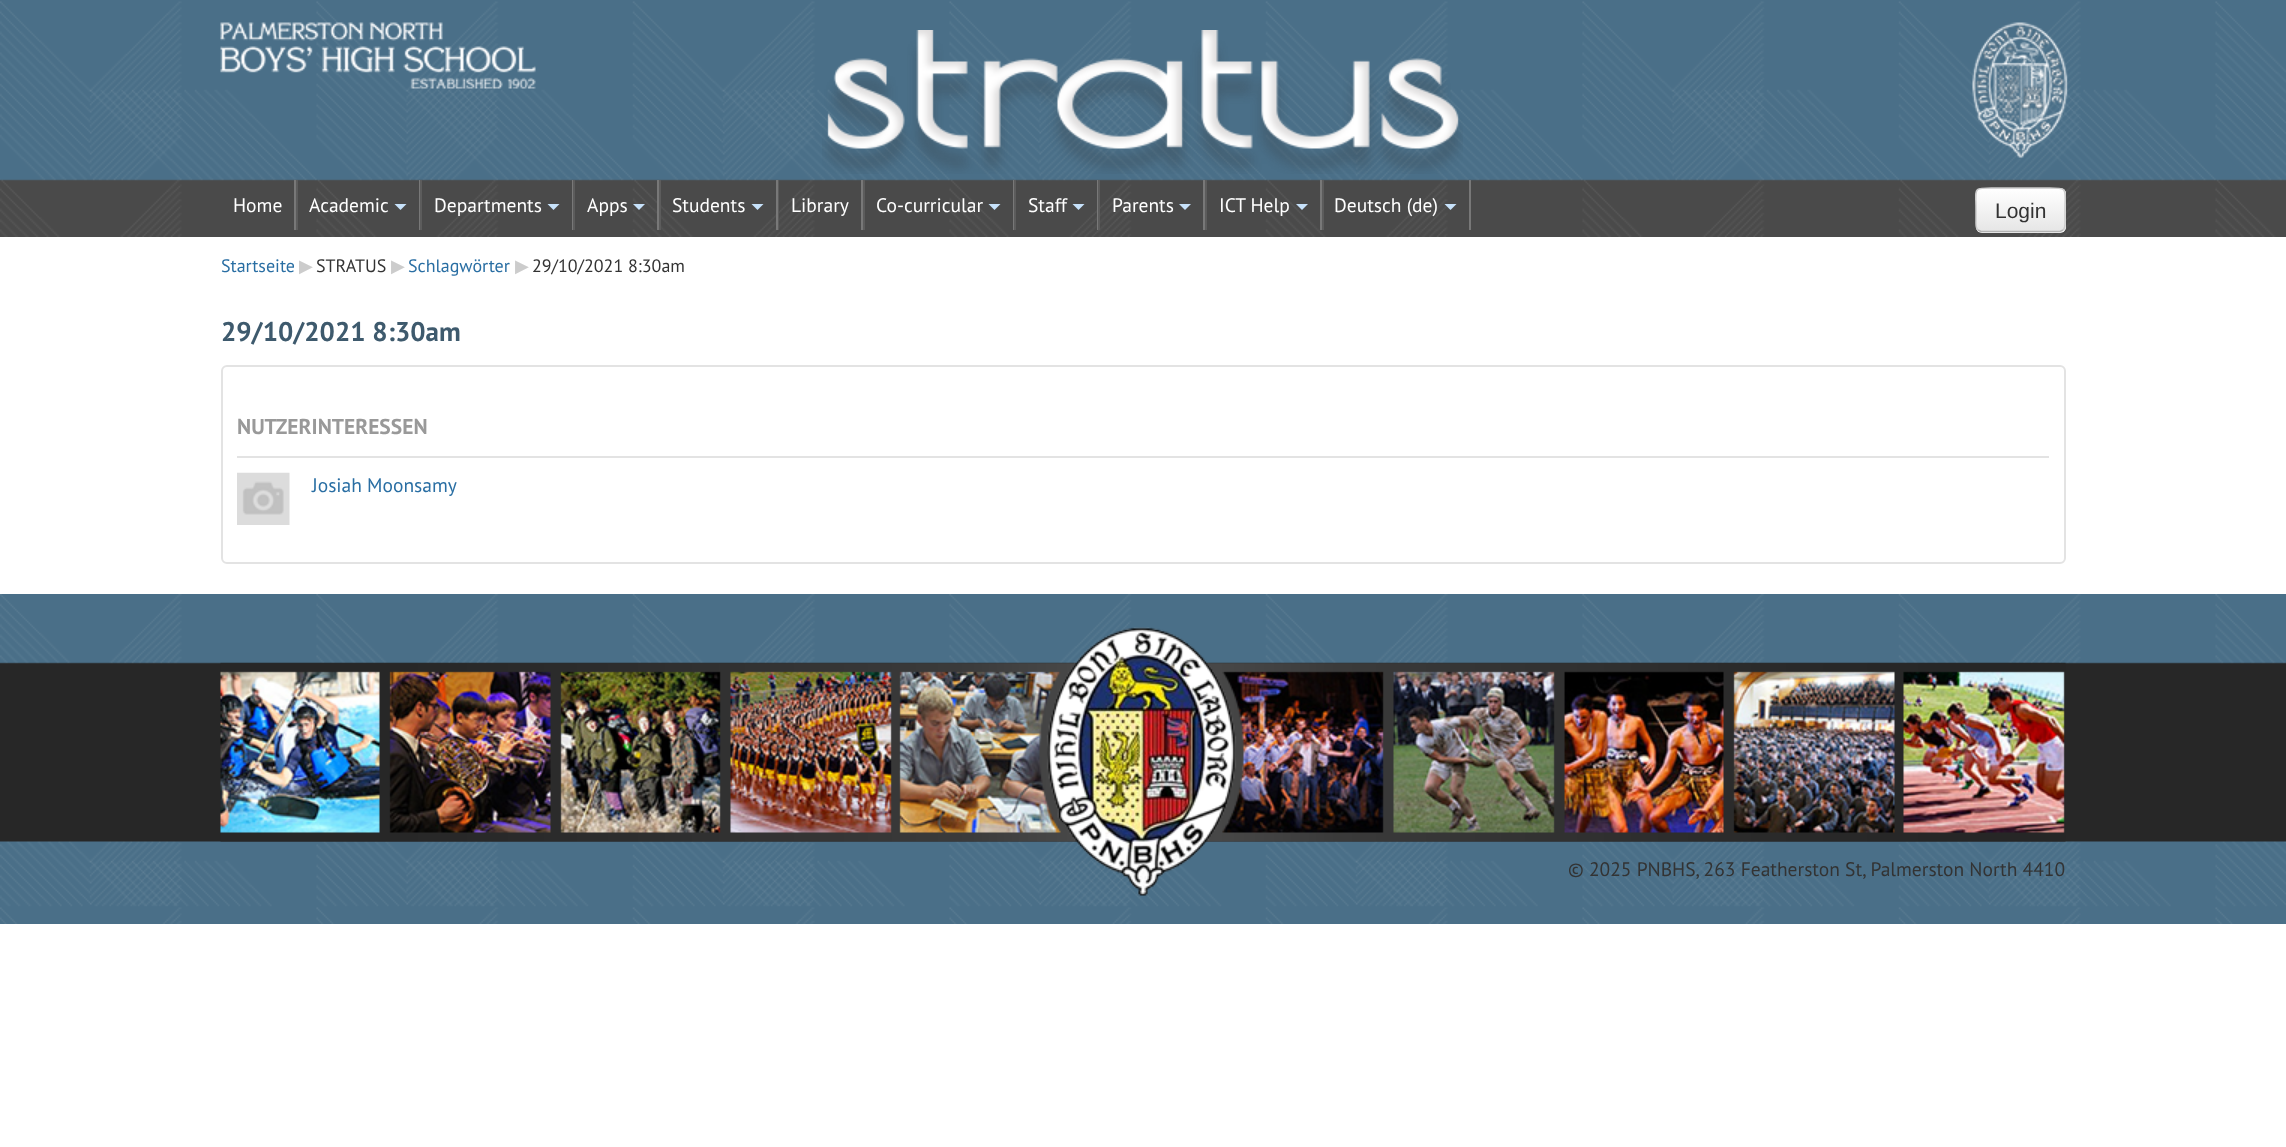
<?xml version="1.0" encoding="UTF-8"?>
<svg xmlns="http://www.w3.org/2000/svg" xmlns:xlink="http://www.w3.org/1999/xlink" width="2286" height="1147">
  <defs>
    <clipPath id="clip1"><rect x="1976" y="188" width="90" height="45" rx="6" /></clipPath>
    <linearGradient id="g1" gradientUnits="userSpaceOnUse" x1="2021" y1="189" x2="2021" y2="231"><stop offset="0" stop-color="#ffffff" /><stop offset="1" stop-color="#e6e6e6" /></linearGradient>
  </defs>
  <rect width="100%" height="100%" fill="#ffffff" />
  <image x="0" y="0" width="2286" height="237" xlink:href="image1.png" />
  <image x="1972" y="22" width="96" height="136" xlink:href="image2.png" />
  <image x="220" y="22" width="316" height="67" xlink:href="image3.png" />
  <image x="822" y="30" width="641" height="144" xlink:href="image4.png" />
  <rect x="294" y="180" width="2" height="50" fill="#787878" />
  <rect x="419" y="180" width="1" height="50" fill="#787878" />
  <rect x="296" y="180" width="2" height="50" fill="#5c5c5c" />
  <path d="M 394.5 204 h 12 l -6 6 z" fill="#c7e2fb" />
  <rect x="572" y="180" width="1" height="50" fill="#787878" />
  <rect x="420" y="180" width="2" height="50" fill="#5c5c5c" />
  <path d="M 547.5 204 h 12 l -6 6 z" fill="#c7e2fb" />
  <rect x="657" y="180" width="2" height="50" fill="#787878" />
  <rect x="573" y="180" width="2" height="50" fill="#5c5c5c" />
  <path d="M 633 204 h 12 l -6 6 z" fill="#c7e2fb" />
  <rect x="776" y="180" width="2" height="50" fill="#787878" />
  <rect x="659" y="180" width="2" height="50" fill="#5c5c5c" />
  <path d="M 751.5 204 h 12 l -6 6 z" fill="#c7e2fb" />
  <rect x="861" y="180" width="2" height="50" fill="#787878" />
  <rect x="778" y="180" width="1" height="50" fill="#5c5c5c" />
  <rect x="1013" y="180" width="1" height="50" fill="#787878" />
  <rect x="863" y="180" width="2" height="50" fill="#5c5c5c" />
  <path d="M 988.5 204 h 12 l -6 6 z" fill="#c7e2fb" />
  <rect x="1097" y="180" width="1" height="50" fill="#787878" />
  <rect x="1014" y="180" width="2" height="50" fill="#5c5c5c" />
  <path d="M 1072.5 204 h 12 l -6 6 z" fill="#c7e2fb" />
  <rect x="1203" y="180" width="2" height="50" fill="#787878" />
  <rect x="1098" y="180" width="2" height="50" fill="#5c5c5c" />
  <path d="M 1179 204 h 12 l -6 6 z" fill="#c7e2fb" />
  <rect x="1320" y="180" width="2" height="50" fill="#787878" />
  <rect x="1205" y="180" width="2" height="50" fill="#5c5c5c" />
  <path d="M 1296 204 h 12 l -6 6 z" fill="#c7e2fb" />
  <rect x="1469" y="180" width="2" height="50" fill="#787878" />
  <rect x="1322" y="180" width="2" height="50" fill="#5c5c5c" />
  <path d="M 1444.5 204 h 12 l -6 6 z" fill="#c7e2fb" />
  <rect x="1976" y="188" width="90" height="45" rx="6" fill="#f5f5f5" />
  <g clip-path="url(#clip1)">
    <rect x="1976" y="189" width="90" height="42" fill="url(#g1)" />
  </g>
  <path d="M 1982 190 h 78 c 2 0 4 3 4 5 c 0 -9 -12 -6 -18 -6 h -51 c -6 0 -18 -3 -18 6 c 0 -2 2 -5 5 -5 z" fill="#ffffff" />
  <path d="M 2063 230 l -3 1.5 h -79 l -3 -1.5" fill="none" stroke="#b3b3b3" stroke-width="1.5" />
  <path d="M 1978 230 c -2.5 -2 -2 -6 -2 -9 v -11 c 0 -23 -4 -22 18.5 -22 h 52 c 22.5 0 18.5 -1 18.5 22 v 11 c 0 3 0.5 7 -2 9" fill="none" stroke="#cccccc" stroke-width="1.5" />
  <rect x="222" y="366" width="1843" height="197" rx="5" fill="none" stroke="#e3e3e3" stroke-width="2" />
  <rect x="237" y="456" width="1812" height="2" fill="#e3e3e3" />
  <image x="237" y="472" width="53" height="53" xlink:href="image5.png" />
  <image x="0" y="594" width="2286" height="330" xlink:href="image6.png" />
  <image x="220" y="627" width="1846" height="269" xlink:href="image7.png" />
  <text x="233" y="212" style="font-family: PT Sans; font-size: 19.5px; fill: #ffffff">Home</text>
  <text x="309" y="212" style="font-family: PT Sans; font-size: 19.5px; fill: #ffffff">Academic</text>
  <text x="434" y="212" style="font-family: PT Sans; font-size: 19.5px; fill: #ffffff">Departments</text>
  <text x="587" y="212" style="font-family: PT Sans; font-size: 19.5px; fill: #ffffff">Apps</text>
  <text x="672" y="212" style="font-family: PT Sans; font-size: 19.5px; fill: #ffffff">Students</text>
  <text x="791" y="212" style="font-family: PT Sans; font-size: 19.5px; fill: #ffffff">Library</text>
  <text x="876" y="212" style="font-family: PT Sans; font-size: 19.5px; fill: #ffffff">Co-curricular</text>
  <text x="1028" y="212" style="font-family: PT Sans; font-size: 19.5px; fill: #ffffff">Staff</text>
  <text x="1112" y="212" style="font-family: PT Sans; font-size: 19.5px; fill: #ffffff">Parents</text>
  <text x="1219" y="212" style="font-family: PT Sans; font-size: 19.5px; fill: #ffffff">ICT Help</text>
  <text x="1334" y="212" style="font-family: PT Sans; font-size: 19.5px; fill: #ffffff">Deutsch (de)</text>
  <text x="1995" y="218" style="font-family: Liberation Sans; font-size: 21px; fill: #333333">Login</text>
  <text x="221" y="272" style="font-family: PT Sans; font-size: 18px; fill: #296ea3">Startseite</text>
  <text x="299" y="272" style="font-family: DejaVu Sans; font-size: 18px; fill: #cccccc">▶︎</text>
  <text x="316" y="272" style="font-family: PT Sans; font-size: 18px; fill: #333333">STRATUS</text>
  <text x="391" y="272" style="font-family: DejaVu Sans; font-size: 18px; fill: #cccccc">▶︎</text>
  <text x="408" y="272" style="font-family: PT Sans; font-size: 18px; fill: #296ea3">Schlagwörter</text>
  <text x="515" y="272" style="font-family: DejaVu Sans; font-size: 18px; fill: #cccccc">▶︎</text>
  <text x="532" y="272" style="font-family: PT Sans; font-size: 18px; fill: #333333">29/10/2021 8:30am</text>
  <text x="221" y="341" style="font-family: PT Sans; font-size: 27px; font-weight: bold; fill: #3e5a6d">29/10/2021 8:30am</text>
  <text x="237" y="434" style="font-family: PT Sans; font-size: 21.5px; font-weight: bold; fill: #999999">NUTZERINTERESSEN</text>
  <text x="312" y="492" style="font-family: PT Sans; font-size: 19.5px; fill: #296ea3">Josiah Moonsamy</text>
  <text x="1568" y="876" style="font-family: PT Sans; font-size: 19.5px; fill: #333333">© 2025 PNBHS, 263 Featherston St, Palmerston North 4410</text>
</svg>
